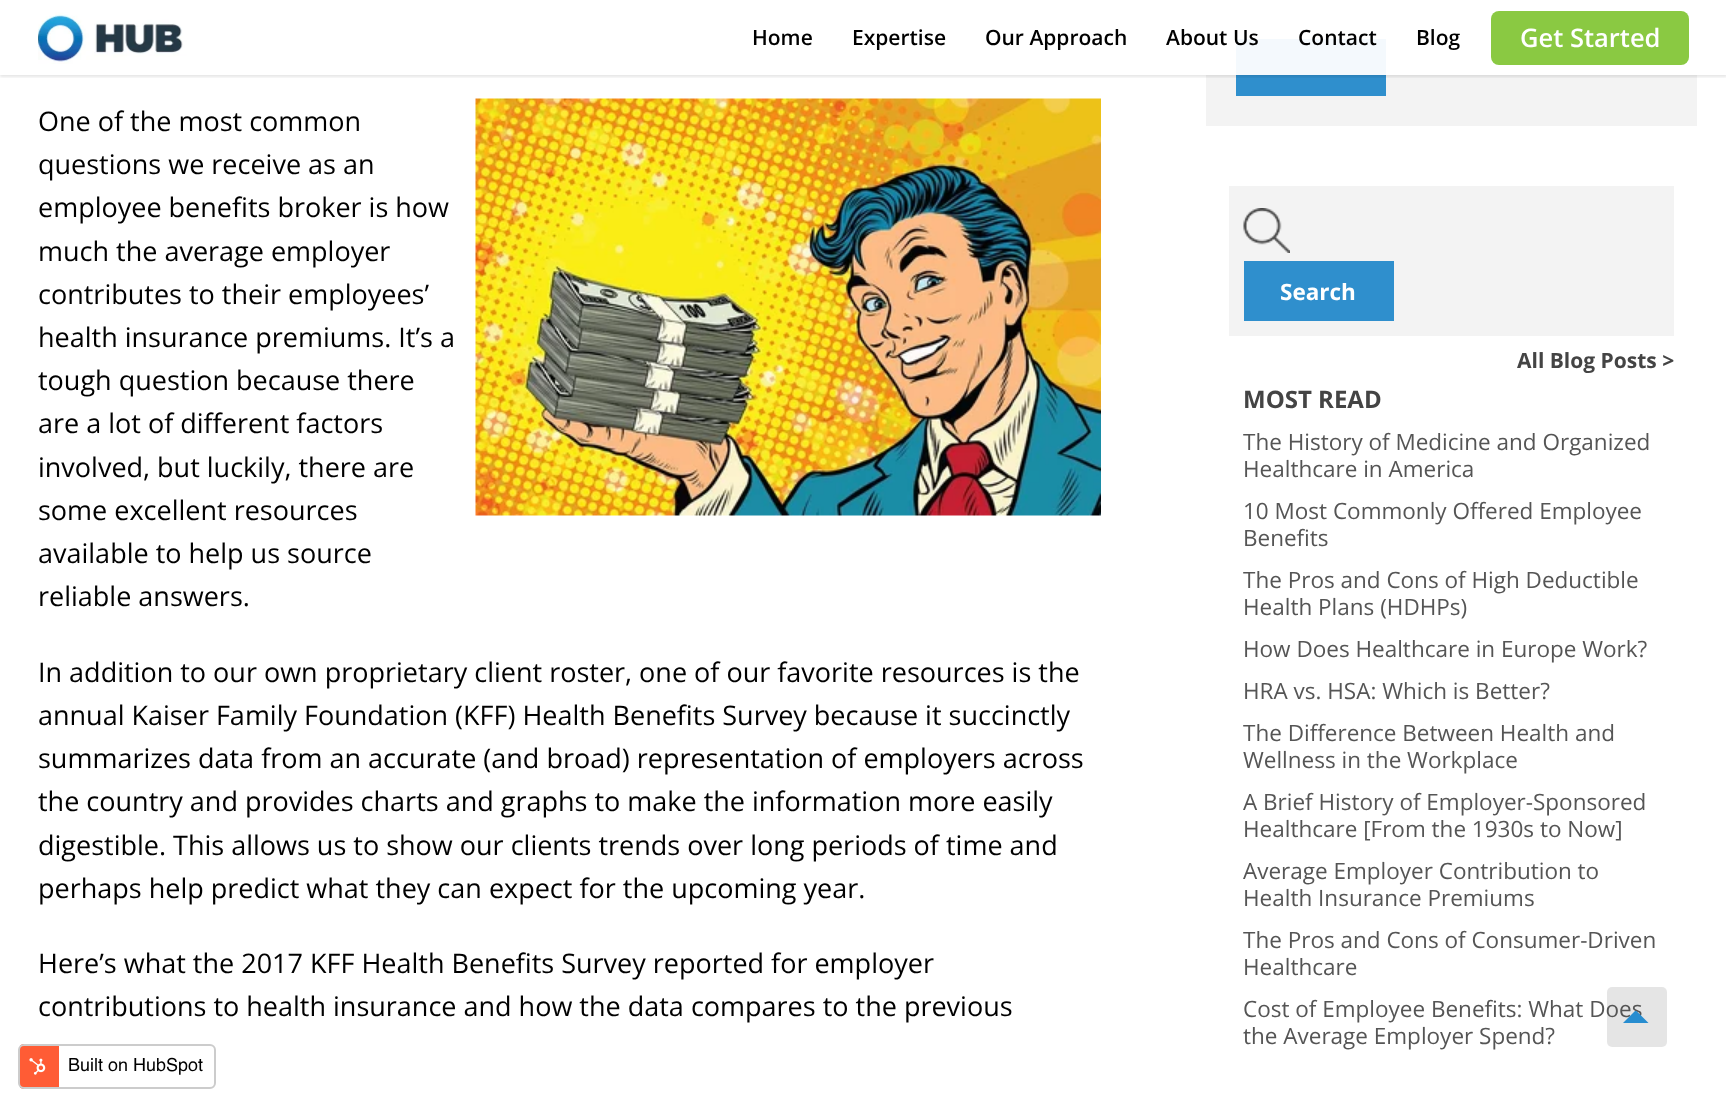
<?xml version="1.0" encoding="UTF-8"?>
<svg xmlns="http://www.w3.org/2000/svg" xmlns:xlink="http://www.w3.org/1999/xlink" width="1726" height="1106">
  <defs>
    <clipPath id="clip1"><rect x="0" y="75" width="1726" height="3" /></clipPath>
    <clipPath id="clip2"><rect x="18" y="1044" width="198" height="45" rx="6" /></clipPath>
  </defs>
  <rect width="100%" height="100%" fill="#ffffff" />
  <rect x="1206" width="491" height="126" fill="#f3f3f3" />
  <rect x="1236" width="431" height="6" fill="#ffffff" />
  <rect x="1236" y="39" width="150" height="57" fill="#2f8fcd" />
  <g clip-path="url(#clip1)">
    <rect y="2" width="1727" height="75" fill="#000000" fill-opacity="0.1" filter="blur(1.5px)" />
  </g>
  <rect x="1206" width="491" height="75" fill="#ffffff" fill-opacity="0.95" />
  <image x="38" y="9" width="360" height="55" xlink:href="image1.png" />
  <rect x="1491" y="11" width="198" height="54" rx="8" fill="#8ac942" />
  <image x="475" y="98" width="626" height="418" xlink:href="image2.png" />
  <rect x="1229" y="186" width="445" height="150" fill="#f3f3f3" />
  <image x="1243" y="208" width="47" height="45" xlink:href="image3.png" />
  <rect x="1244" y="261" width="150" height="60" fill="#2f8fcd" />
  <rect x="1607" y="987" width="60" height="60" rx="5" fill="#000000" fill-opacity="0.1" />
  <g clip-path="url(#clip2)">
    <rect x="20" y="1044" width="39" height="45" fill="#ff5c35" />
  </g>
  <rect x="19" y="1045" width="196" height="43" rx="5" fill="none" stroke="#cccccc" stroke-width="2" />
  <image x="29" y="1058" width="17" height="17" xlink:href="image4.png" />
  <text x="752" y="45" style="font-family: Open Sans; font-size: 21px; font-weight: 600; fill: #000000">Home</text>
  <text x="852" y="45" style="font-family: Open Sans; font-size: 21px; font-weight: 600; fill: #000000">Expertise</text>
  <text x="985" y="45" style="font-family: Open Sans; font-size: 21px; font-weight: 600; fill: #000000">Our Approach</text>
  <text x="1166" y="45" style="font-family: Open Sans; font-size: 21px; font-weight: 600; fill: #000000">About Us</text>
  <text x="1298" y="45" style="font-family: Open Sans; font-size: 21px; font-weight: 600; fill: #000000">Contact</text>
  <text x="1416" y="45" style="font-family: Open Sans; font-size: 21px; font-weight: 600; fill: #000000">Blog</text>
  <text x="1520" y="47" style="font-family: Open Sans; font-size: 25.5px; font-weight: 600; fill: #ffffff">Get Started</text>
  <text x="38" y="131" style="font-family: Open Sans; font-size: 27px; fill: #000000">One of the most common</text>
  <text x="38" y="174" style="font-family: Open Sans; font-size: 27px; fill: #000000">questions we receive as an</text>
  <text x="38" y="217" style="font-family: Open Sans; font-size: 27px; fill: #000000">employee benefits broker is how</text>
  <text x="38" y="261" style="font-family: Open Sans; font-size: 27px; fill: #000000">much the average employer</text>
  <text x="38" y="304" style="font-family: Open Sans; font-size: 27px; fill: #000000">contributes to their employees’</text>
  <text x="38" y="347" style="font-family: Open Sans; font-size: 27px; fill: #000000">health insurance premiums. It’s a</text>
  <text x="38" y="390" style="font-family: Open Sans; font-size: 27px; fill: #000000">tough question because there</text>
  <text x="38" y="433" style="font-family: Open Sans; font-size: 27px; fill: #000000">are a lot of different factors</text>
  <text x="38" y="477" style="font-family: Open Sans; font-size: 27px; fill: #000000">involved, but luckily, there are</text>
  <text x="38" y="520" style="font-family: Open Sans; font-size: 27px; fill: #000000">some excellent resources</text>
  <text x="38" y="563" style="font-family: Open Sans; font-size: 27px; fill: #000000">available to help us source</text>
  <text x="38" y="606" style="font-family: Open Sans; font-size: 27px; fill: #000000">reliable answers.</text>
  <text x="38" y="682" style="font-family: Open Sans; font-size: 27px; fill: #000000">In addition to our own proprietary client roster, one of our favorite resources is the</text>
  <text x="38" y="725" style="font-family: Open Sans; font-size: 27px; fill: #000000">annual Kaiser Family Foundation (KFF) Health Benefits Survey because it succinctly</text>
  <text x="38" y="768" style="font-family: Open Sans; font-size: 27px; fill: #000000">summarizes data from an accurate (and broad) representation of employers across</text>
  <text x="38" y="811" style="font-family: Open Sans; font-size: 27px; fill: #000000">the country and provides charts and graphs to make the information more easily</text>
  <text x="38" y="855" style="font-family: Open Sans; font-size: 27px; fill: #000000">digestible. This allows us to show our clients trends over long periods of time and</text>
  <text x="38" y="898" style="font-family: Open Sans; font-size: 27px; fill: #000000">perhaps help predict what they can expect for the upcoming year.</text>
  <text x="38" y="973" style="font-family: Open Sans; font-size: 27px; fill: #000000">Here’s what the 2017 KFF Health Benefits Survey reported for employer</text>
  <text x="38" y="1016" style="font-family: Open Sans; font-size: 27px; fill: #000000">contributions to health insurance and how the data compares to the previous</text>
  <text x="1280" y="300" style="font-family: Open Sans; font-size: 22.5px; font-weight: bold; fill: #ffffff">Search</text>
  <text x="1517" y="368" style="font-family: Open Sans; font-size: 21px; font-weight: bold; fill: #444444">All Blog Posts &gt;</text>
  <text x="1243" y="408" style="font-family: Open Sans; font-size: 24px; font-weight: bold; fill: #444444">MOST READ</text>
  <text x="1243" y="450" style="font-family: Open Sans; font-size: 22.5px; fill: #555555">The History of Medicine and Organized</text>
  <text x="1243" y="477" style="font-family: Open Sans; font-size: 22.5px; fill: #555555">Healthcare in America</text>
  <text x="1243" y="519" style="font-family: Open Sans; font-size: 22.5px; fill: #555555">10 Most Commonly Offered Employee</text>
  <text x="1243" y="546" style="font-family: Open Sans; font-size: 22.5px; fill: #555555">Benefits</text>
  <text x="1243" y="588" style="font-family: Open Sans; font-size: 22.5px; fill: #555555">The Pros and Cons of High Deductible</text>
  <text x="1243" y="615" style="font-family: Open Sans; font-size: 22.5px; fill: #555555">Health Plans (HDHPs)</text>
  <text x="1243" y="657" style="font-family: Open Sans; font-size: 22.5px; fill: #555555">How Does Healthcare in Europe Work?</text>
  <text x="1243" y="699" style="font-family: Open Sans; font-size: 22.5px; fill: #555555">HRA vs. HSA: Which is Better?</text>
  <text x="1243" y="741" style="font-family: Open Sans; font-size: 22.5px; fill: #555555">The Difference Between Health and</text>
  <text x="1243" y="768" style="font-family: Open Sans; font-size: 22.5px; fill: #555555">Wellness in the Workplace</text>
  <text x="1243" y="810" style="font-family: Open Sans; font-size: 22.5px; fill: #555555">A Brief History of Employer-Sponsored</text>
  <text x="1243" y="837" style="font-family: Open Sans; font-size: 22.5px; fill: #555555">Healthcare [From the 1930s to Now]</text>
  <text x="1243" y="879" style="font-family: Open Sans; font-size: 22.5px; fill: #555555">Average Employer Contribution to</text>
  <text x="1243" y="906" style="font-family: Open Sans; font-size: 22.5px; fill: #555555">Health Insurance Premiums</text>
  <text x="1243" y="948" style="font-family: Open Sans; font-size: 22.5px; fill: #555555">The Pros and Cons of Consumer-Driven</text>
  <text x="1243" y="975" style="font-family: Open Sans; font-size: 22.5px; fill: #555555">Healthcare</text>
  <text x="1243" y="1017" style="font-family: Open Sans; font-size: 22.5px; fill: #555555">Cost of Employee Benefits: What Does</text>
  <text x="1243" y="1044" style="font-family: Open Sans; font-size: 22.5px; fill: #555555">the Average Employer Spend?</text>
  <path d="M 1648.5 1023 h -25.5 l 12 -12 h 1.5 z" fill="#278dd0" />
  <text x="68" y="1071" style="font-family: Helvetica; font-size: 18px; fill: #000000">Built on HubSpot</text>
</svg>
